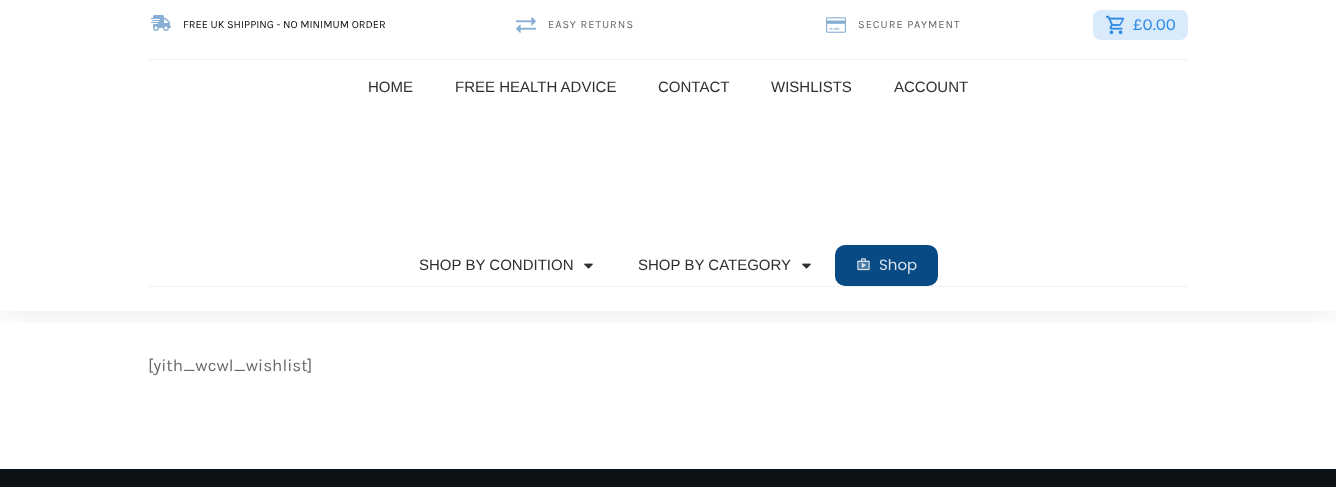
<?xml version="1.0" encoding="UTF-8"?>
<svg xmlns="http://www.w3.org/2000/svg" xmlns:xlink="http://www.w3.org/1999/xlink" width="1336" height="487">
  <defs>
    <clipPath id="clip1"><rect x="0" y="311" width="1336" height="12" /></clipPath>
  </defs>
  <rect width="100%" height="100%" fill="#ffffff" />
  <g clip-path="url(#clip1)">
    <rect y="2" width="1336" height="311" fill="#000000" fill-opacity="0.08" filter="blur(15px)" />
  </g>
  <path d="M 148 59.5 h 1040" fill="none" stroke="#e0e0e0" stroke-dasharray="1 1" />
  <image x="151" y="15" width="20" height="16" xlink:href="image1.png" />
  <image x="516" y="17" width="20" height="16" xlink:href="image2.png" />
  <image x="826" y="17" width="20" height="16" xlink:href="image3.png" />
  <rect x="1093" y="10" width="95" height="30" rx="8" fill="#d9eafb" />
  <image x="1105" y="15" width="20" height="20" xlink:href="image4.png" />
  <rect x="148" y="286" width="1040" height="1" fill="#f1f1f1" />
  <image x="584" y="263" width="9" height="6" xlink:href="image5.png" />
  <image x="802" y="263" width="9" height="6" xlink:href="image5.png" />
  <rect x="835" y="245" width="103" height="41" rx="10" fill="#084a83" />
  <image x="857" y="258" width="13" height="13" xlink:href="image6.png" />
  <rect y="469" width="1336" height="18" fill="#0c1115" />
  <text x="183" y="28" style="font-family: Karla; font-size: 11px; fill: #0b1013">FREE UK SHIPPING - NO MINIMUM ORDER</text>
  <text x="548" y="28" style="font-family: Karla; font-size: 11px; letter-spacing: 1px; fill: #696969">EASY RETURNS</text>
  <text x="858" y="28" style="font-family: Karla; font-size: 11px; letter-spacing: 1px; fill: #696969">SECURE PAYMENT</text>
  <text x="1133" y="30" style="font-family: Karla; font-size: 17px; fill: #2f8ae4">£0.00</text>
  <text x="368" y="92" style="font-family: Liberation Sans; font-size: 15px; fill: #2f2f2f">HOME</text>
  <text x="455" y="92" style="font-family: Liberation Sans; font-size: 15px; fill: #2f2f2f">FREE HEALTH ADVICE</text>
  <text x="658" y="92" style="font-family: Liberation Sans; font-size: 15px; fill: #2f2f2f">CONTACT</text>
  <text x="771" y="92" style="font-family: Liberation Sans; font-size: 15px; fill: #2f2f2f">WISHLISTS</text>
  <text x="894" y="92" style="font-family: Liberation Sans; font-size: 15px; fill: #2f2f2f">ACCOUNT</text>
  <text x="419" y="270" style="font-family: Liberation Sans; font-size: 15px; fill: #2f2f2f">SHOP BY CONDITION</text>
  <text x="638" y="270" style="font-family: Liberation Sans; font-size: 15px; fill: #2f2f2f">SHOP BY CATEGORY</text>
  <text x="879" y="270" style="font-family: Poppins; font-size: 15px; fill: #dae4ec">Shop</text>
  <text x="148" y="371" style="font-family: Karla; font-size: 17px; fill: #696969">[yith_wcwl_wishlist]</text>
</svg>
